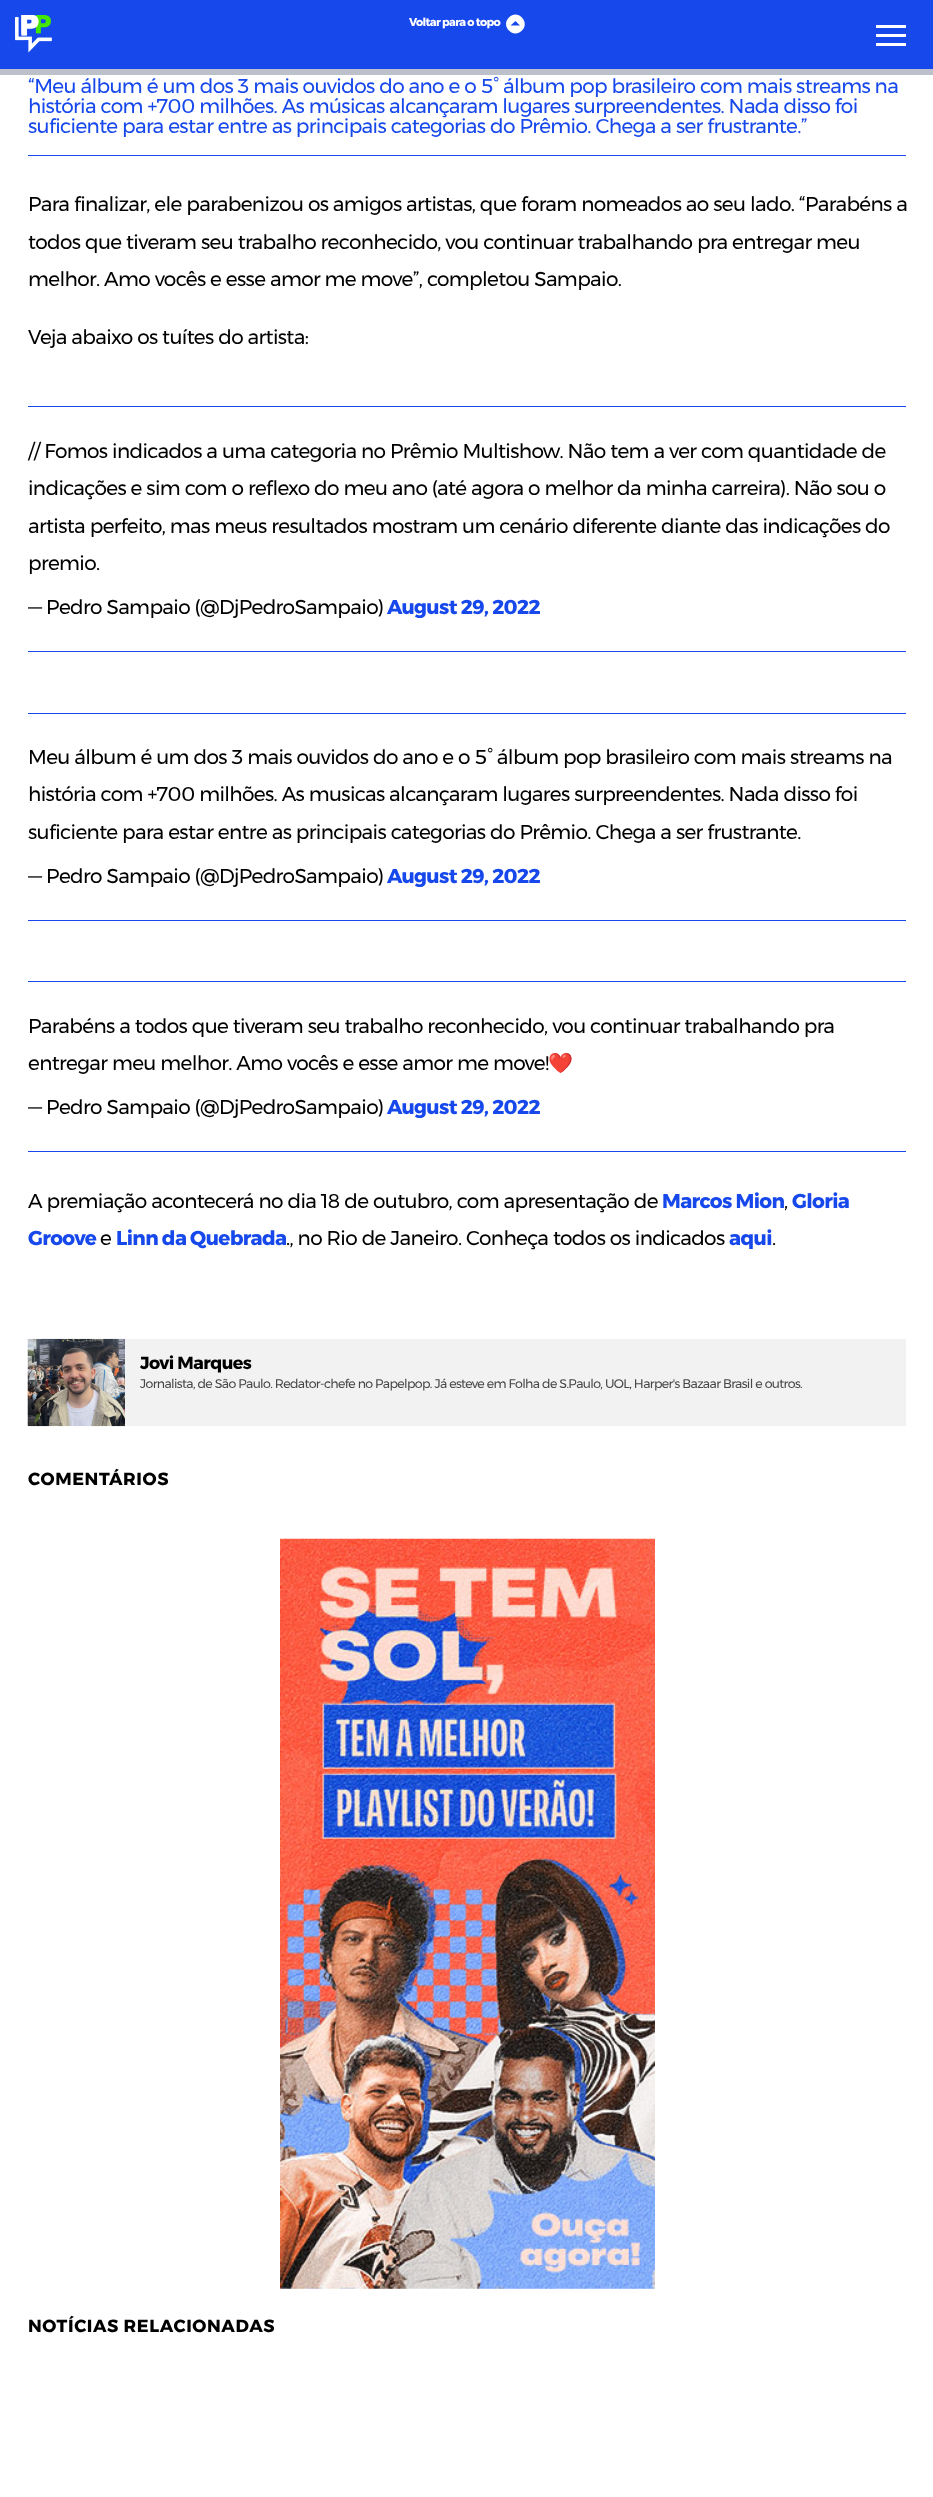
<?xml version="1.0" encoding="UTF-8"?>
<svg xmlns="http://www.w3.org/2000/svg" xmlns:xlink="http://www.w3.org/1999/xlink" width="933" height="2497">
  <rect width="100%" height="100%" fill="#ffffff" />
  <rect width="933" height="69" fill="#1648ec" />
  <image x="15" y="15" width="37" height="38" xlink:href="image1.png" />
  <rect x="876" y="25" width="30" height="3" fill="#ffffff" />
  <rect x="876" y="34" width="30" height="3" fill="#ffffff" />
  <rect x="876" y="43" width="30" height="3" fill="#ffffff" />
  <path d="M 509 17.5 c 8.5 -9 21.5 4.5 13 13 c -8.5 9 -22 -4.5 -13 -13 z m 6.5 3.5 l -5 4.5 h 9.5 z" fill="#ffffff" />
  <rect y="69" width="933" height="6" fill="#bbc0ca" />
  <rect x="28" y="155" width="878" height="1" fill="#1648ec" />
  <rect x="28" y="406" width="878" height="1" fill="#1648ec" />
  <rect x="28" y="651" width="878" height="1" fill="#1648ec" />
  <rect x="28" y="713" width="878" height="1" fill="#1648ec" />
  <rect x="28" y="920" width="878" height="1" fill="#1648ec" />
  <rect x="28" y="981" width="878" height="1" fill="#1648ec" />
  <rect x="28" y="1151" width="878" height="1" fill="#1648ec" />
  <rect x="125" y="1339" width="781" height="87" fill="#f2f2f2" />
  <image x="27" y="1338" width="98" height="89" xlink:href="image2.png" />
  <image x="280" y="1538" width="375" height="751" xlink:href="image3.png" />
  <text x="409" y="26" style="font-family: Montserrat; font-size: 11.25px; font-weight: bold; letter-spacing: -0.62px; fill: #ffffff">Voltar para o topo</text>
  <text x="28" y="93" style="font-family: Montserrat; font-size: 20px; letter-spacing: -0.62px; fill: #1648ec">“Meu álbum é um dos 3 mais ouvidos do ano e o 5° álbum pop brasileiro com mais streams na</text>
  <text x="28" y="113" style="font-family: Montserrat; font-size: 20px; letter-spacing: -0.62px; fill: #1648ec">história com +700 milhões. As músicas alcançaram lugares surpreendentes. Nada disso foi</text>
  <text x="28" y="133" style="font-family: Montserrat; font-size: 20px; letter-spacing: -0.62px; fill: #1648ec">suficiente para estar entre as principais categorias do Prêmio. Chega a ser frustrante.”</text>
  <text x="28" y="211" style="font-family: Montserrat; font-size: 20px; letter-spacing: -0.62px; fill: #000000">Para finalizar, ele parabenizou os amigos artistas, que foram nomeados ao seu lado. “Parabéns a</text>
  <text x="28" y="249" style="font-family: Montserrat; font-size: 20px; letter-spacing: -0.62px; fill: #000000">todos que tiveram seu trabalho reconhecido, vou continuar trabalhando pra entregar meu</text>
  <text x="28" y="286" style="font-family: Montserrat; font-size: 20px; letter-spacing: -0.62px; fill: #000000">melhor. Amo vocês e esse amor me move”, completou Sampaio.</text>
  <text x="28" y="344" style="font-family: Montserrat; font-size: 20px; letter-spacing: -0.62px; fill: #000000">Veja abaixo os tuítes do artista:</text>
  <text x="28" y="458" style="font-family: Montserrat; font-size: 20px; letter-spacing: -0.62px; fill: #000000">// Fomos indicados a uma categoria no Prêmio Multishow. Não tem a ver com quantidade de</text>
  <text x="28" y="495" style="font-family: Montserrat; font-size: 20px; letter-spacing: -0.62px; fill: #000000">indicações e sim com o reflexo do meu ano (até agora o melhor da minha carreira). Não sou o</text>
  <text x="28" y="533" style="font-family: Montserrat; font-size: 20px; letter-spacing: -0.62px; fill: #000000">artista perfeito, mas meus resultados mostram um cenário diferente diante das indicações do</text>
  <text x="28" y="570" style="font-family: Montserrat; font-size: 20px; letter-spacing: -0.62px; fill: #000000">premio.</text>
  <text x="28" y="614" style="font-family: Montserrat; font-size: 20px; letter-spacing: -0.62px; fill: #000000">— Pedro Sampaio (@DjPedroSampaio)</text>
  <text x="387" y="614" style="font-family: Montserrat; font-size: 20px; font-weight: bold; letter-spacing: -0.62px; fill: #1648ec">August 29, 2022</text>
  <text x="28" y="764" style="font-family: Montserrat; font-size: 20px; letter-spacing: -0.62px; fill: #000000">Meu álbum é um dos 3 mais ouvidos do ano e o 5° álbum pop brasileiro com mais streams na</text>
  <text x="28" y="801" style="font-family: Montserrat; font-size: 20px; letter-spacing: -0.62px; fill: #000000">história com +700 milhões. As musicas alcançaram lugares surpreendentes. Nada disso foi</text>
  <text x="28" y="839" style="font-family: Montserrat; font-size: 20px; letter-spacing: -0.62px; fill: #000000">suficiente para estar entre as principais categorias do Prêmio. Chega a ser frustrante.</text>
  <text x="28" y="883" style="font-family: Montserrat; font-size: 20px; letter-spacing: -0.62px; fill: #000000">— Pedro Sampaio (@DjPedroSampaio)</text>
  <text x="387" y="883" style="font-family: Montserrat; font-size: 20px; font-weight: bold; letter-spacing: -0.62px; fill: #1648ec">August 29, 2022</text>
  <text x="28" y="1033" style="font-family: Montserrat; font-size: 20px; letter-spacing: -0.62px; fill: #000000">Parabéns a todos que tiveram seu trabalho reconhecido, vou continuar trabalhando pra</text>
  <text x="28" y="1070" style="font-family: Montserrat; font-size: 20px; letter-spacing: -0.62px; fill: #000000">entregar meu melhor. Amo vocês e esse amor me move!</text>
  <text x="548" y="1070" style="font-family: Noto Color Emoji; font-size: 20px; letter-spacing: -0.62px; fill: #000000">❤️</text>
  <text x="28" y="1114" style="font-family: Montserrat; font-size: 20px; letter-spacing: -0.62px; fill: #000000">— Pedro Sampaio (@DjPedroSampaio)</text>
  <text x="387" y="1114" style="font-family: Montserrat; font-size: 20px; font-weight: bold; letter-spacing: -0.62px; fill: #1648ec">August 29, 2022</text>
  <text x="28" y="1208" style="font-family: Montserrat; font-size: 20px; letter-spacing: -0.62px; fill: #000000">A premiação acontecerá no dia 18 de outubro, com apresentação de</text>
  <text x="662" y="1208" style="font-family: Montserrat; font-size: 20px; font-weight: bold; letter-spacing: -0.62px; fill: #1648ec">Marcos Mion</text>
  <text x="784" y="1208" style="font-family: Montserrat; font-size: 20px; letter-spacing: -0.62px; fill: #000000">,</text>
  <text x="792" y="1208" style="font-family: Montserrat; font-size: 20px; font-weight: bold; letter-spacing: -0.62px; fill: #1648ec">Gloria</text>
  <text x="28" y="1245" style="font-family: Montserrat; font-size: 20px; font-weight: bold; letter-spacing: -0.62px; fill: #1648ec">Groove</text>
  <text x="100" y="1245" style="font-family: Montserrat; font-size: 20px; letter-spacing: -0.62px; fill: #000000">e</text>
  <text x="116" y="1245" style="font-family: Montserrat; font-size: 20px; font-weight: bold; letter-spacing: -0.62px; fill: #1648ec">Linn da Quebrada</text>
  <text x="286" y="1245" style="font-family: Montserrat; font-size: 20px; letter-spacing: -0.62px; fill: #000000">., no Rio de Janeiro. Conheça todos os indicados</text>
  <text x="729" y="1245" style="font-family: Montserrat; font-size: 20px; font-weight: bold; letter-spacing: -0.62px; fill: #1648ec">aqui</text>
  <text x="772" y="1245" style="font-family: Montserrat; font-size: 20px; letter-spacing: -0.62px; fill: #000000">.</text>
  <text x="140" y="1369" style="font-family: Montserrat; font-size: 17.5px; font-weight: bold; letter-spacing: -0.5px; fill: #000000">Jovi Marques</text>
  <text x="140" y="1388" style="font-family: Montserrat; font-size: 12.5px; letter-spacing: -0.62px; fill: #484848">Jornalista, de São Paulo. Redator-chefe no Papelpop. Já esteve em Folha de S.Paulo, UOL, Harper's Bazaar Brasil e outros.</text>
  <text x="28" y="1485" style="font-family: Montserrat; font-size: 17.5px; font-weight: bold; letter-spacing: 0.6px; fill: #000000">COMENTÁRIOS</text>
  <text x="28" y="2332" style="font-family: Montserrat; font-size: 17.5px; font-weight: bold; letter-spacing: 0.6px; fill: #000000">NOTÍCIAS RELACIONADAS</text>
</svg>
